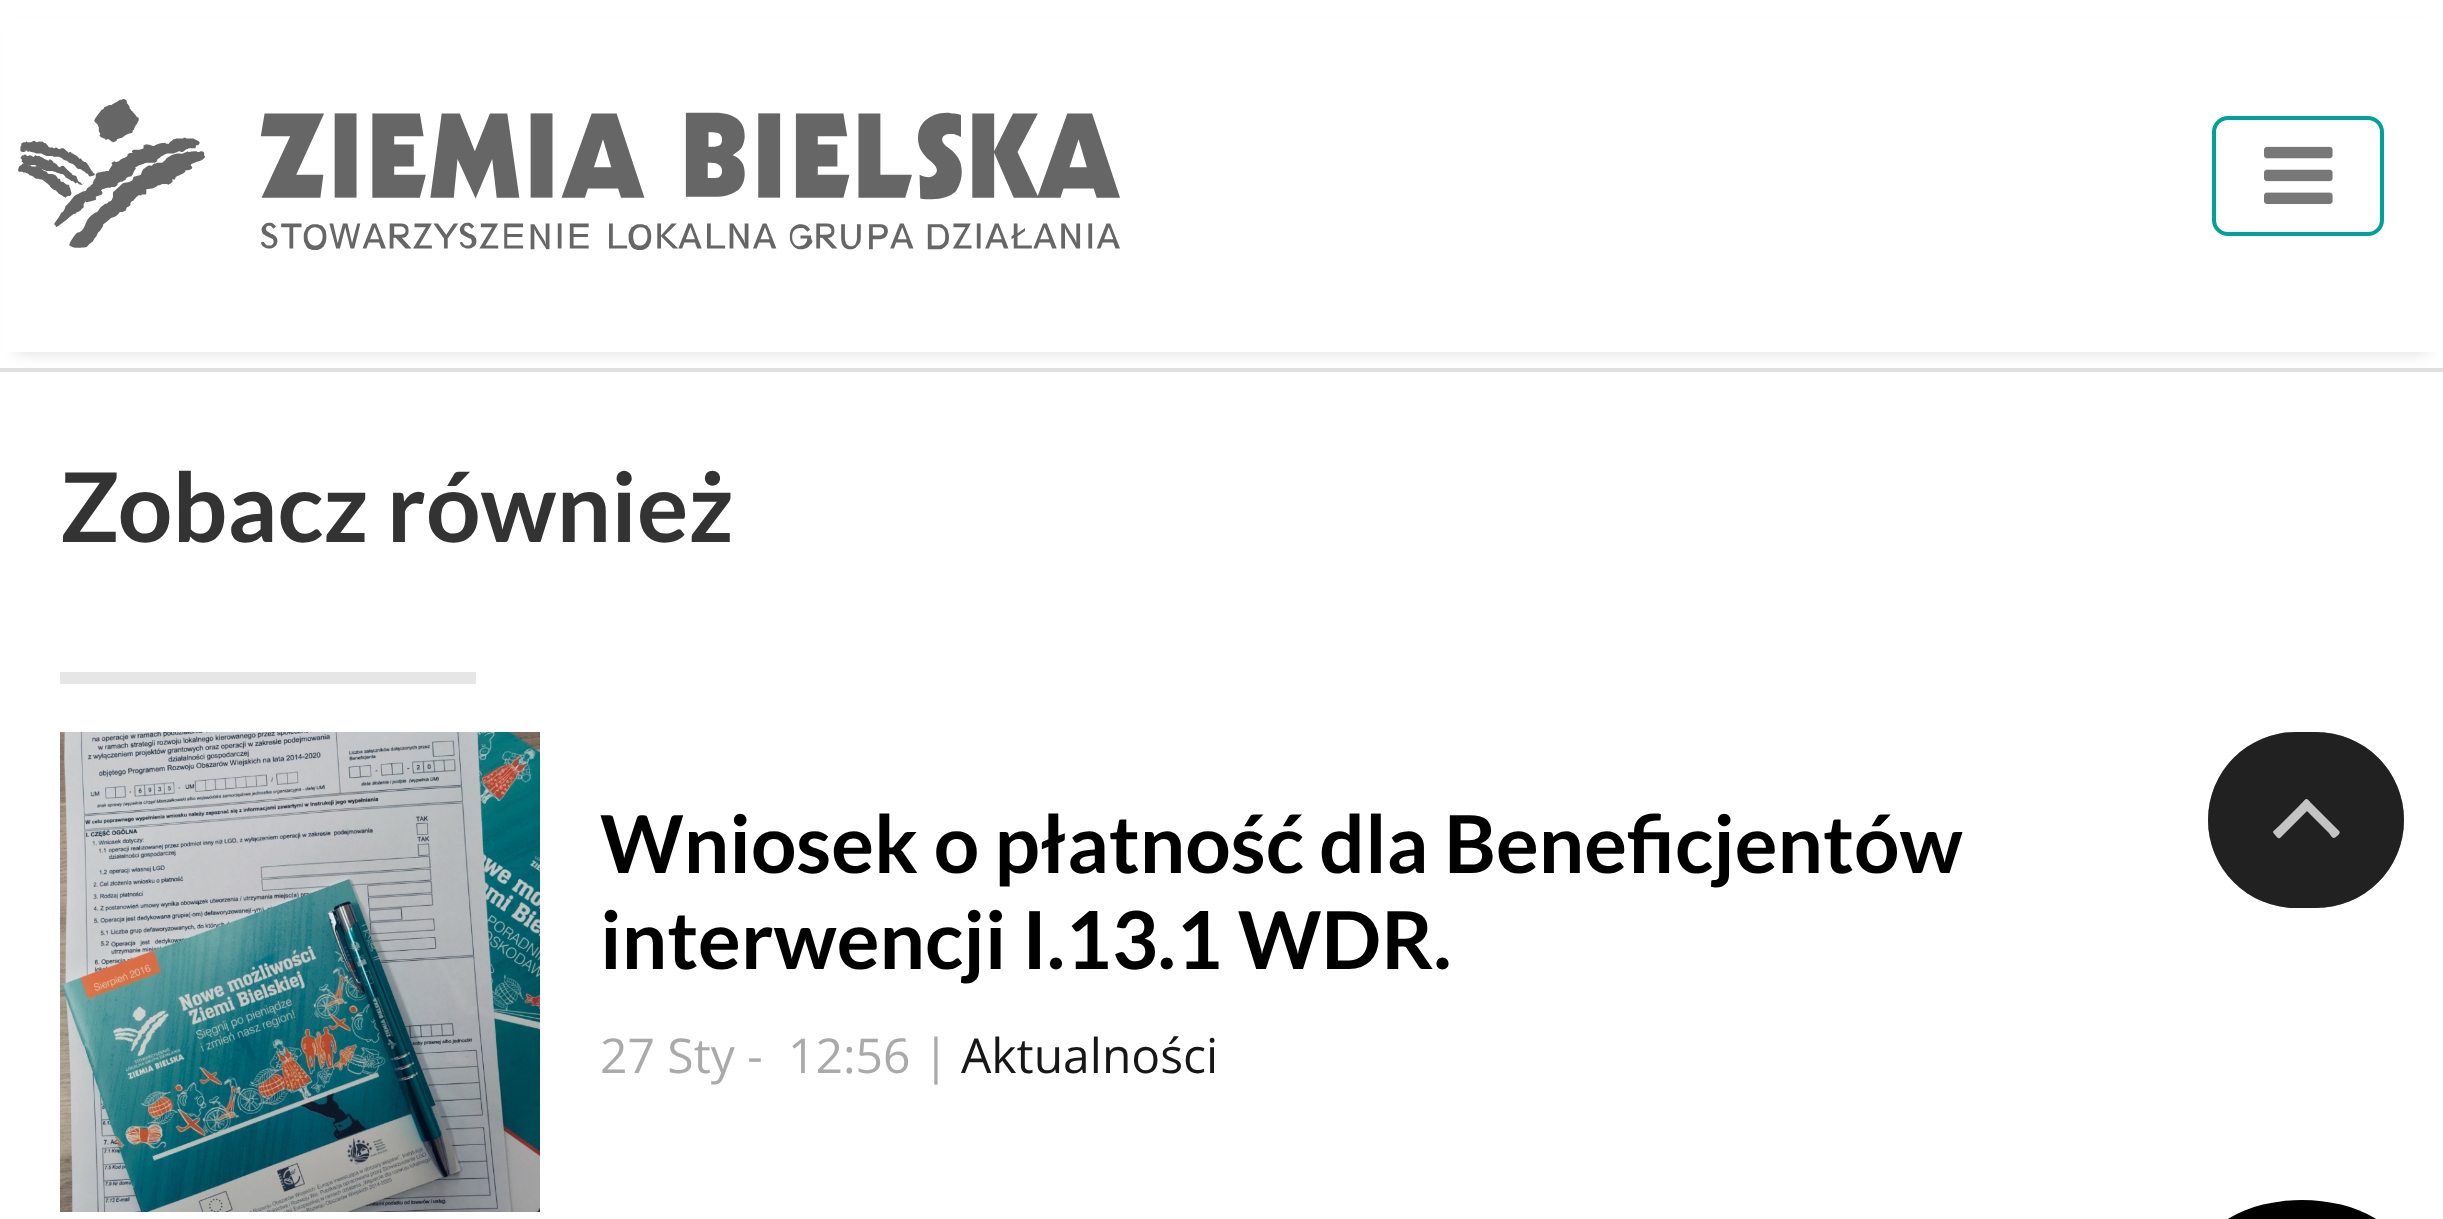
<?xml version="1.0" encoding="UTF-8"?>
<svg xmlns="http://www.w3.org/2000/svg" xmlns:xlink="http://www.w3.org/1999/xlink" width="2443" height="1219">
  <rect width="100%" height="100%" fill="#ffffff" />
  <rect y="368" width="2443" height="4" fill="#dfdfdf" />
  <rect x="16" y="32" width="2412" height="320" fill="#000000" fill-opacity="0.14" filter="blur(8px)" />
  <rect x="4" y="20" width="2436" height="332" fill="#ffffff" />
  <image x="18" y="99" width="1102" height="151" xlink:href="image1.png" />
  <rect x="2214" y="118" width="168" height="116" rx="14" fill="none" stroke="#00a19a" stroke-width="4" />
  <image x="2264" y="146" width="69" height="58" xlink:href="image2.png" />
  <rect x="60" y="672" width="416" height="12" fill="#e6e6e6" />
  <image x="60" y="732" width="480" height="480" xlink:href="image3.png" />
  <rect x="2200" y="1200" width="204" height="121" rx="102" fill="#000000" />
  <rect x="2208" y="732" width="196" height="176" rx="88" fill="#5d5d5d" />
  <path d="M 2339 831 c 2 2 -1 4 -2 5 c -4 4 -5 1 -8 -3 l -22 -22 l -27 27 c -2 1 -3 -1 -4 -2 c -5 -5 -3 -4 3 -10 l 21 -21 c 8 -8 5 -8 13 0 z" fill="#ffffff" />
  <rect x="2208" y="732" width="196" height="176" rx="88" fill="#000000" fill-opacity="0.64" />
  <path d="M 2339 831 c 2 2 -1 4 -2 5 c -4 4 -5 1 -8 -3 l -22 -22 l -27 27 c -2 1 -3 -1 -4 -2 c -5 -5 -3 -4 3 -10 l 21 -21 c 8 -8 5 -8 13 0 z" fill="#ffffff" fill-opacity="0.64" />
  <text x="60" y="542" style="font-family: Lato; font-size: 96px; font-weight: bold; fill: #333333">Zobacz również</text>
  <text x="600" y="873" style="font-family: Lato; font-size: 80px; font-weight: bold; fill: #000000">Wniosek o płatność dla Beneficjentów</text>
  <text x="600" y="969" style="font-family: Lato; font-size: 80px; font-weight: bold; fill: #000000">interwencji I.13.1 WDR.</text>
  <text x="600" y="1073" style="font-family: Open Sans; font-size: 48px; fill: #aaaaaa">27 Sty -</text>
  <text x="788" y="1073" style="font-family: Open Sans; font-size: 48px; fill: #aaaaaa">12:56 |</text>
  <text x="961" y="1073" style="font-family: Open Sans; font-size: 48px; fill: #171717">Aktualności</text>
</svg>
